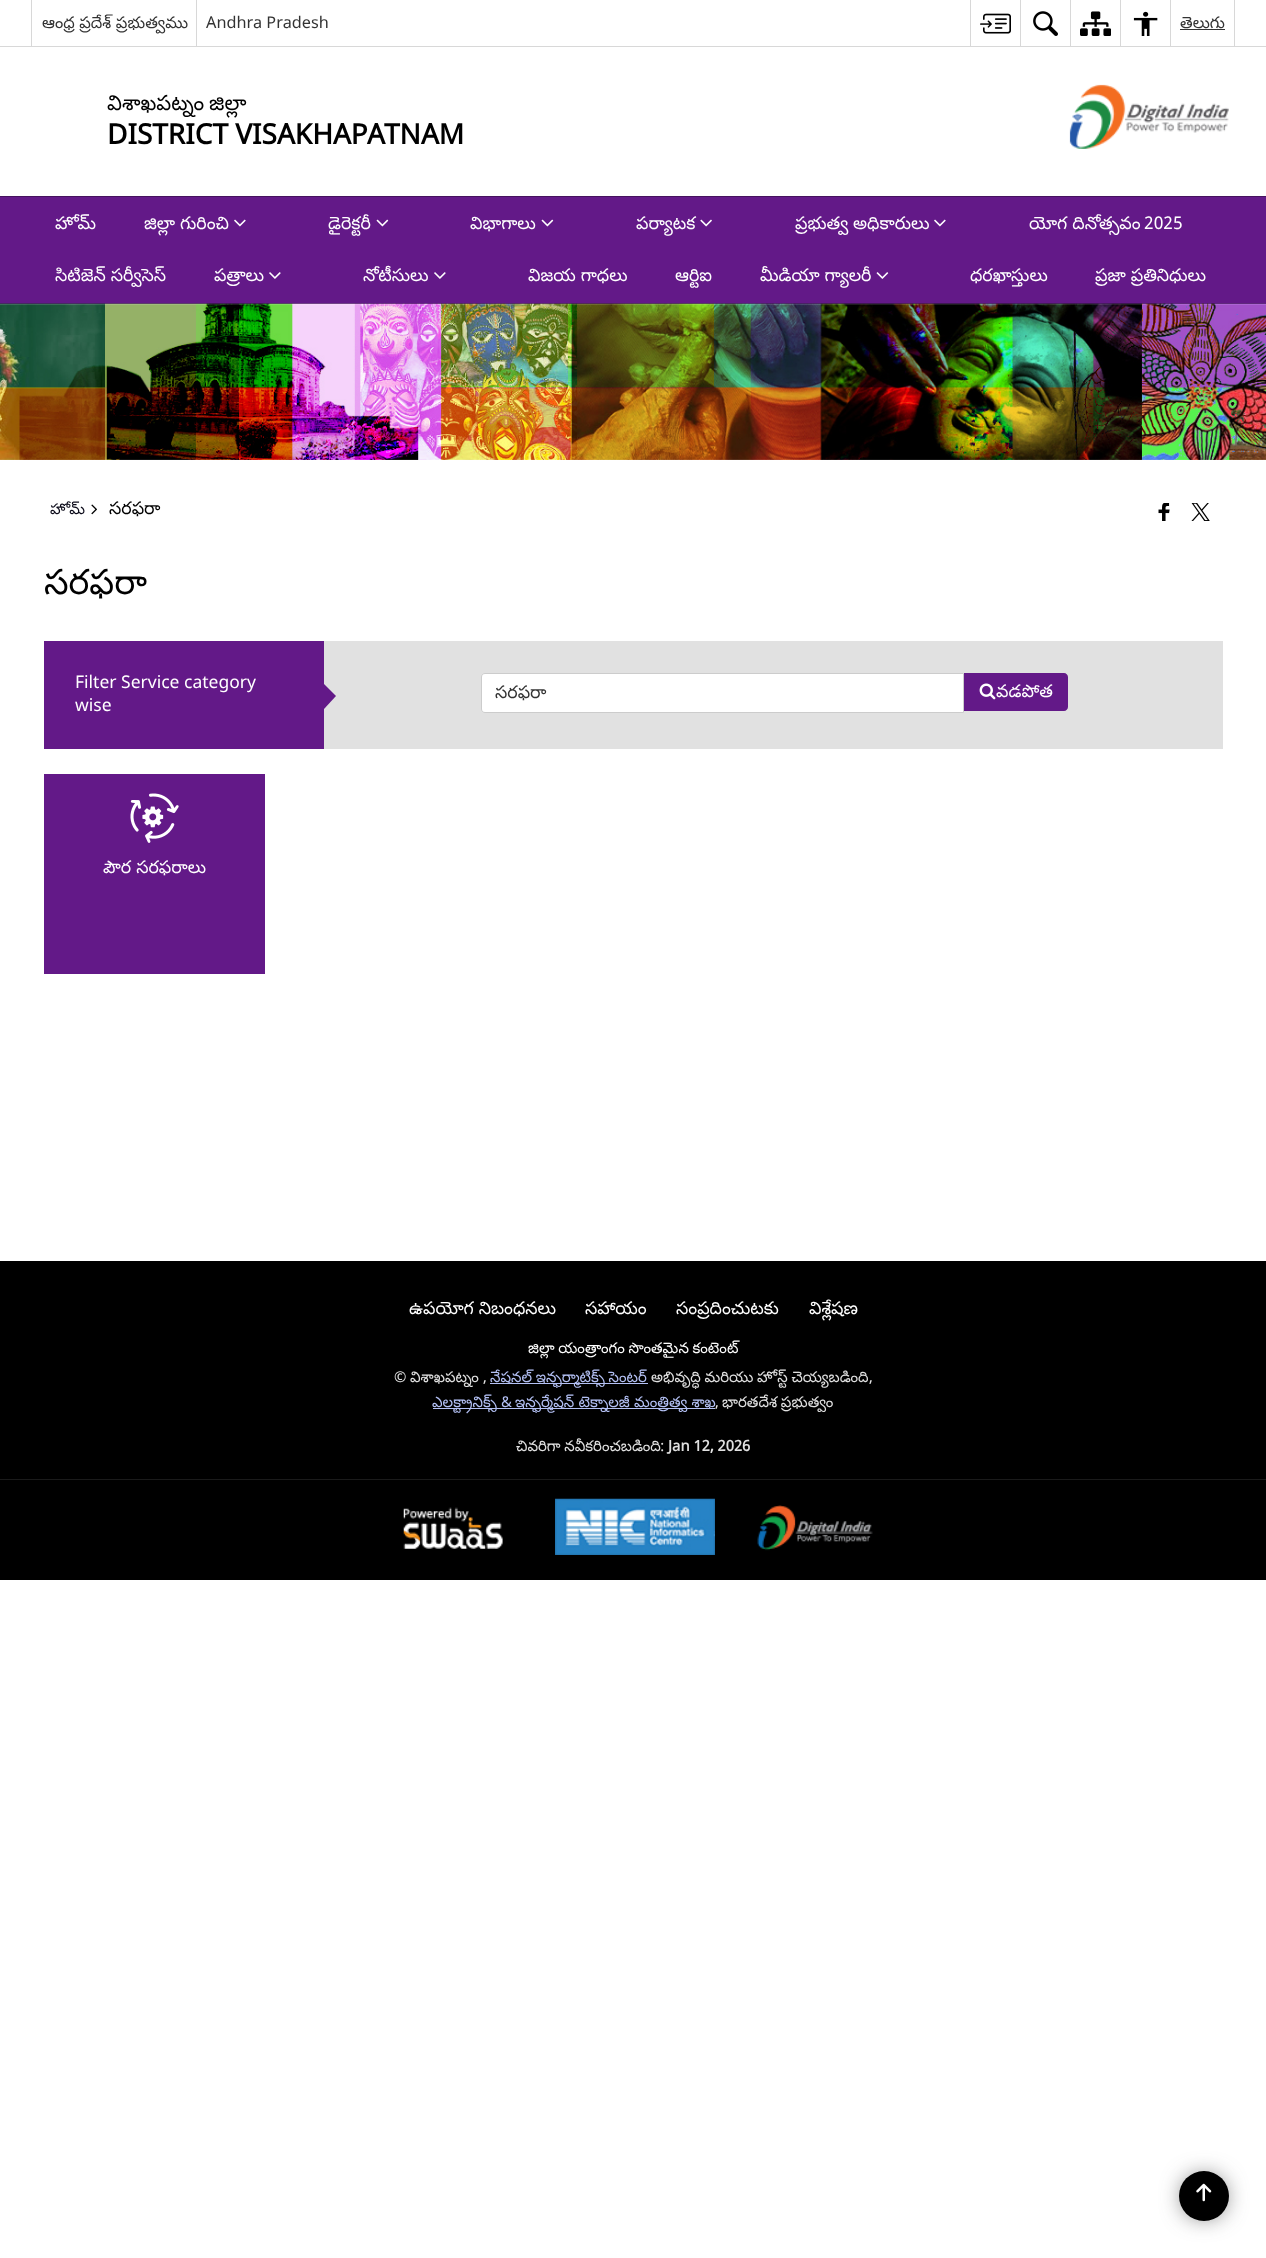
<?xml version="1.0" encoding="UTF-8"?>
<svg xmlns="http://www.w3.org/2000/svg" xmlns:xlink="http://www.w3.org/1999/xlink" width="1266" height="2258">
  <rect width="100%" height="100%" fill="#ffffff" />
  <rect y="46" width="1266" height="1" fill="#d8d8d8" />
  <rect x="31" width="1" height="46" fill="#d8d8d8" />
  <rect x="196" width="1" height="46" fill="#d8d8d8" />
  <rect x="970" width="1" height="46" fill="#d8d8d8" />
  <image x="980" y="13" width="31" height="21" xlink:href="image1.png" />
  <rect x="1020" width="1" height="46" fill="#d8d8d8" />
  <image x="1033" y="11" width="25" height="25" xlink:href="image2.png" />
  <rect x="1070" width="1" height="46" fill="#d8d8d8" />
  <image x="1080" y="11" width="31" height="25" xlink:href="image3.png" />
  <rect x="1120" width="1" height="46" fill="#d8d8d8" />
  <image x="1133" y="11" width="25" height="25" xlink:href="image4.png" />
  <rect x="1234" width="1" height="46" fill="#d8d8d8" />
  <rect x="1170" width="1" height="46" fill="#d8d8d8" />
  <rect x="1180" y="29" width="45" height="1" fill="#333333" />
  <image x="1069" y="84" width="160" height="65" xlink:href="image5.png" />
  <rect y="197" width="1266" height="106" fill="#631988" />
  <rect y="196" width="1266" height="1" fill="#45125f" />
  <rect y="303" width="1266" height="1" fill="#45125f" />
  <image x="234" y="219" width="12" height="8" xlink:href="image6.png" />
  <image x="376" y="219" width="13" height="8" xlink:href="image7.png" />
  <image x="541" y="219" width="13" height="8" xlink:href="image7.png" />
  <image x="700" y="219" width="12" height="8" xlink:href="image8.png" />
  <image x="934" y="219" width="12" height="8" xlink:href="image6.png" />
  <image x="269" y="272" width="12" height="7" xlink:href="image9.png" />
  <image x="434" y="272" width="12" height="7" xlink:href="image9.png" />
  <image x="876" y="272" width="13" height="7" xlink:href="image10.png" />
  <image x="0" y="303" width="1266" height="157" xlink:href="image11.png" />
  <image x="91" y="504" width="6" height="11" xlink:href="image12.png" />
  <image x="1158" y="503" width="12" height="18" xlink:href="image13.png" />
  <image x="1191" y="503" width="19" height="18" xlink:href="image14.png" />
  <rect x="324" y="641" width="899" height="108" fill="#e1e1e1" />
  <rect x="44" y="641" width="280" height="108" fill="#631988" />
  <path d="M 324 709 v -25 l 12 12 z" fill="#631988" />
  <path d="M 485 673.5 h 478.5 v 39 h -478.5 c -2 0 -3.5 -1.5 -3.5 -3.5 v -32 c 0 -2 1.5 -3.5 3.5 -3.5 z" fill="#ffffff" stroke="#cccccc" />
  <path d="M 964 673 h 100 c 2 0 4 2 4 4 v 30 c 0 2 -2 4 -4 4 h -100 z" fill="#631988" />
  <image x="979" y="683" width="17" height="17" xlink:href="image15.png" />
  <rect x="44" y="774" width="221" height="200" fill="#631988" />
  <image x="130" y="793" width="49" height="50" xlink:href="image16.png" />
  <rect y="1261" width="1266" height="319" fill="#000000" />
  <rect x="490" y="1383" width="158" height="1" fill="#b4c1f5" />
  <rect x="433" y="1408" width="282" height="1" fill="#b4c1f5" />
  <rect y="1479" width="1266" height="1" fill="#1a1a1a" />
  <image x="403" y="1507" width="100" height="42" xlink:href="image17.png" />
  <image x="555" y="1498" width="160" height="57" xlink:href="image18.png" />
  <image x="757" y="1505" width="116" height="46" xlink:href="image19.png" />
  <rect x="1185" y="2178" width="38" height="37" rx="18.5" fill="#3c3c3c" filter="blur(12px)" />
  <circle cx="1204" cy="2196" r="25" fill="#000000" />
  <image x="1196" y="2183" width="16" height="19" xlink:href="image20.png" />
  <text x="42" y="28" style="font-family: Noto Sans Telugu; font-size: 16.25px; fill: #333333">ఆంధ్ర ప్రదేశ్ ప్రభుత్వము</text>
  <text x="206" y="28" style="font-family: Noto Sans; font-size: 16.25px; fill: #333333">Andhra Pradesh</text>
  <text x="1180" y="28" style="font-family: Noto Sans Telugu; font-size: 16.25px; fill: #333333">తెలుగు</text>
  <text x="107" y="110" word-spacing="-1" style="font-family: Noto Sans Telugu; font-size: 21px; fill: #000000">విశాఖపట్నం జిల్లా</text>
  <text x="107" y="144" style="font-family: Noto Sans; font-size: 28px; font-weight: bold; fill: #000000">DISTRICT VISAKHAPATNAM</text>
  <text x="55" y="229" style="font-family: Noto Sans Telugu; font-size: 17.5px; fill: #ffffff">హోమ్</text>
  <text x="144" y="229" style="font-family: Noto Sans Telugu; font-size: 17.5px; fill: #ffffff">జిల్లా గురించి</text>
  <text x="328" y="229" style="font-family: Noto Sans Telugu; font-size: 17.5px; fill: #ffffff">డైరెక్టరీ</text>
  <text x="470" y="229" style="font-family: Noto Sans Telugu; font-size: 17.5px; fill: #ffffff">విభాగాలు</text>
  <text x="636" y="229" style="font-family: Noto Sans Telugu; font-size: 17.5px; fill: #ffffff">పర్యాటక</text>
  <text x="795" y="229" style="font-family: Noto Sans Telugu; font-size: 17.5px; fill: #ffffff">ప్రభుత్వ అధికారులు</text>
  <text x="1029" y="229" style="font-family: Noto Sans Telugu; font-size: 17.5px; fill: #ffffff">యోగ దినోత్సవం</text>
  <text x="1144" y="229" style="font-family: Noto Sans; font-size: 17.5px; fill: #ffffff">2025</text>
  <text x="55" y="281" style="font-family: Noto Sans Telugu; font-size: 17.5px; fill: #ffffff">సిటిజెన్ సర్వీసెస్</text>
  <text x="214" y="281" style="font-family: Noto Sans Telugu; font-size: 17.5px; fill: #ffffff">పత్రాలు</text>
  <text x="363" y="281" style="font-family: Noto Sans Telugu; font-size: 17.5px; fill: #ffffff">నోటీసులు</text>
  <text x="528" y="281" style="font-family: Noto Sans Telugu; font-size: 17.5px; fill: #ffffff">విజయ గాధలు</text>
  <text x="675" y="281" style="font-family: Noto Sans Telugu; font-size: 17.5px; fill: #ffffff">ఆర్టిఐ</text>
  <text x="760" y="281" style="font-family: Noto Sans Telugu; font-size: 17.5px; fill: #ffffff">మీడియా గ్యాలరీ</text>
  <text x="970" y="281" style="font-family: Noto Sans Telugu; font-size: 17.5px; fill: #ffffff">ధరఖాస్తులు</text>
  <text x="1095" y="281" style="font-family: Noto Sans Telugu; font-size: 17.5px; fill: #ffffff">ప్రజా ప్రతినిధులు</text>
  <text x="50" y="514" style="font-family: Noto Sans Telugu; font-size: 14.9px; fill: #0a0918">హోమ్</text>
  <text x="109" y="514" style="font-family: Noto Sans Telugu; font-size: 17.5px; fill: #000000">సరఫరా</text>
  <text x="44" y="594" style="font-family: Noto Sans Telugu; font-size: 35px; fill: #000000">సరఫరా</text>
  <text x="75" y="688" style="font-family: Noto Sans; font-size: 17.5px; fill: #ffffff">Filter Service category</text>
  <text x="75" y="711" style="font-family: Noto Sans; font-size: 17.5px; fill: #ffffff">wise</text>
  <text x="495" y="698" style="font-family: Noto Sans Telugu; font-size: 17.5px; fill: #333333">సరఫరా</text>
  <text x="996" y="697" style="font-family: Noto Sans Telugu; font-size: 17.5px; fill: #ffffff">వడపోత</text>
  <text x="103" y="873" style="font-family: Noto Sans Telugu; font-size: 17.5px; fill: #ffffff">పౌర సరఫరాలు</text>
  <text x="409" y="1314" style="font-family: Noto Sans Telugu; font-size: 17.5px; fill: #ffffff">ఉపయోగ నిబంధనలు</text>
  <text x="585" y="1314" style="font-family: Noto Sans Telugu; font-size: 17.5px; fill: #ffffff">సహాయం</text>
  <text x="676" y="1314" style="font-family: Noto Sans Telugu; font-size: 17.5px; fill: #ffffff">సంప్రదించుటకు</text>
  <text x="809" y="1314" style="font-family: Noto Sans Telugu; font-size: 17.5px; fill: #ffffff">విశ్లేషణ</text>
  <text x="528" y="1353" word-spacing="-0.5" style="font-family: Noto Sans Telugu; font-size: 14.9px; fill: #ffffff">జిల్లా యంత్రాంగం సొంతమైన కంటెంట్</text>
  <text x="394" y="1382" style="font-family: Noto Sans; font-size: 14.9px; fill: #e1e1e1">©</text>
  <text x="410" y="1382" style="font-family: Noto Sans Telugu; font-size: 14.9px; fill: #e1e1e1">విశాఖపట్నం</text>
  <text x="483" y="1382" style="font-family: Noto Sans; font-size: 14.9px; fill: #e1e1e1">,</text>
  <text x="490" y="1382" word-spacing="-0.5" style="font-family: Noto Sans Telugu; font-size: 14.9px; fill: #b4c1f5">నేషనల్ ఇన్ఫర్మాటిక్స్ సెంటర్</text>
  <text x="651" y="1382" word-spacing="-0.5" style="font-family: Noto Sans Telugu; font-size: 14.9px; fill: #e1e1e1">అభివృద్ధి మరియు హోస్ట్ చెయ్యబడింది</text>
  <text x="869" y="1382" style="font-family: Noto Sans; font-size: 14.9px; fill: #e1e1e1">,</text>
  <text x="432" y="1407" style="font-family: Noto Sans Telugu; font-size: 14.9px; fill: #b4c1f5">ఎలక్ట్రానిక్స్</text>
  <text x="501" y="1407" style="font-family: Noto Sans; font-size: 14.9px; fill: #b4c1f5">&amp;</text>
  <text x="515" y="1407" style="font-family: Noto Sans Telugu; font-size: 14.9px; fill: #b4c1f5">ఇన్ఫర్మేషన్ టెక్నాలజీ మంత్రిత్వ శాఖ</text>
  <text x="715" y="1407" style="font-family: Noto Sans; font-size: 14.9px; fill: #e1e1e1">,</text>
  <text x="722" y="1407" word-spacing="-0.5" style="font-family: Noto Sans Telugu; font-size: 14.9px; fill: #e1e1e1">భారతదేశ ప్రభుత్వం</text>
  <text x="516" y="1451" word-spacing="-0.5" style="font-family: Noto Sans Telugu; font-size: 14.9px; fill: #e1e1e1">చివరిగా నవీకరించబడింది</text>
  <text x="660" y="1451" style="font-family: Noto Sans; font-size: 14.9px; fill: #e1e1e1">:</text>
  <text x="668" y="1451" style="font-family: Noto Sans; font-size: 14.9px; font-weight: bold; fill: #e1e1e1">Jan 12, 2026</text>
</svg>
